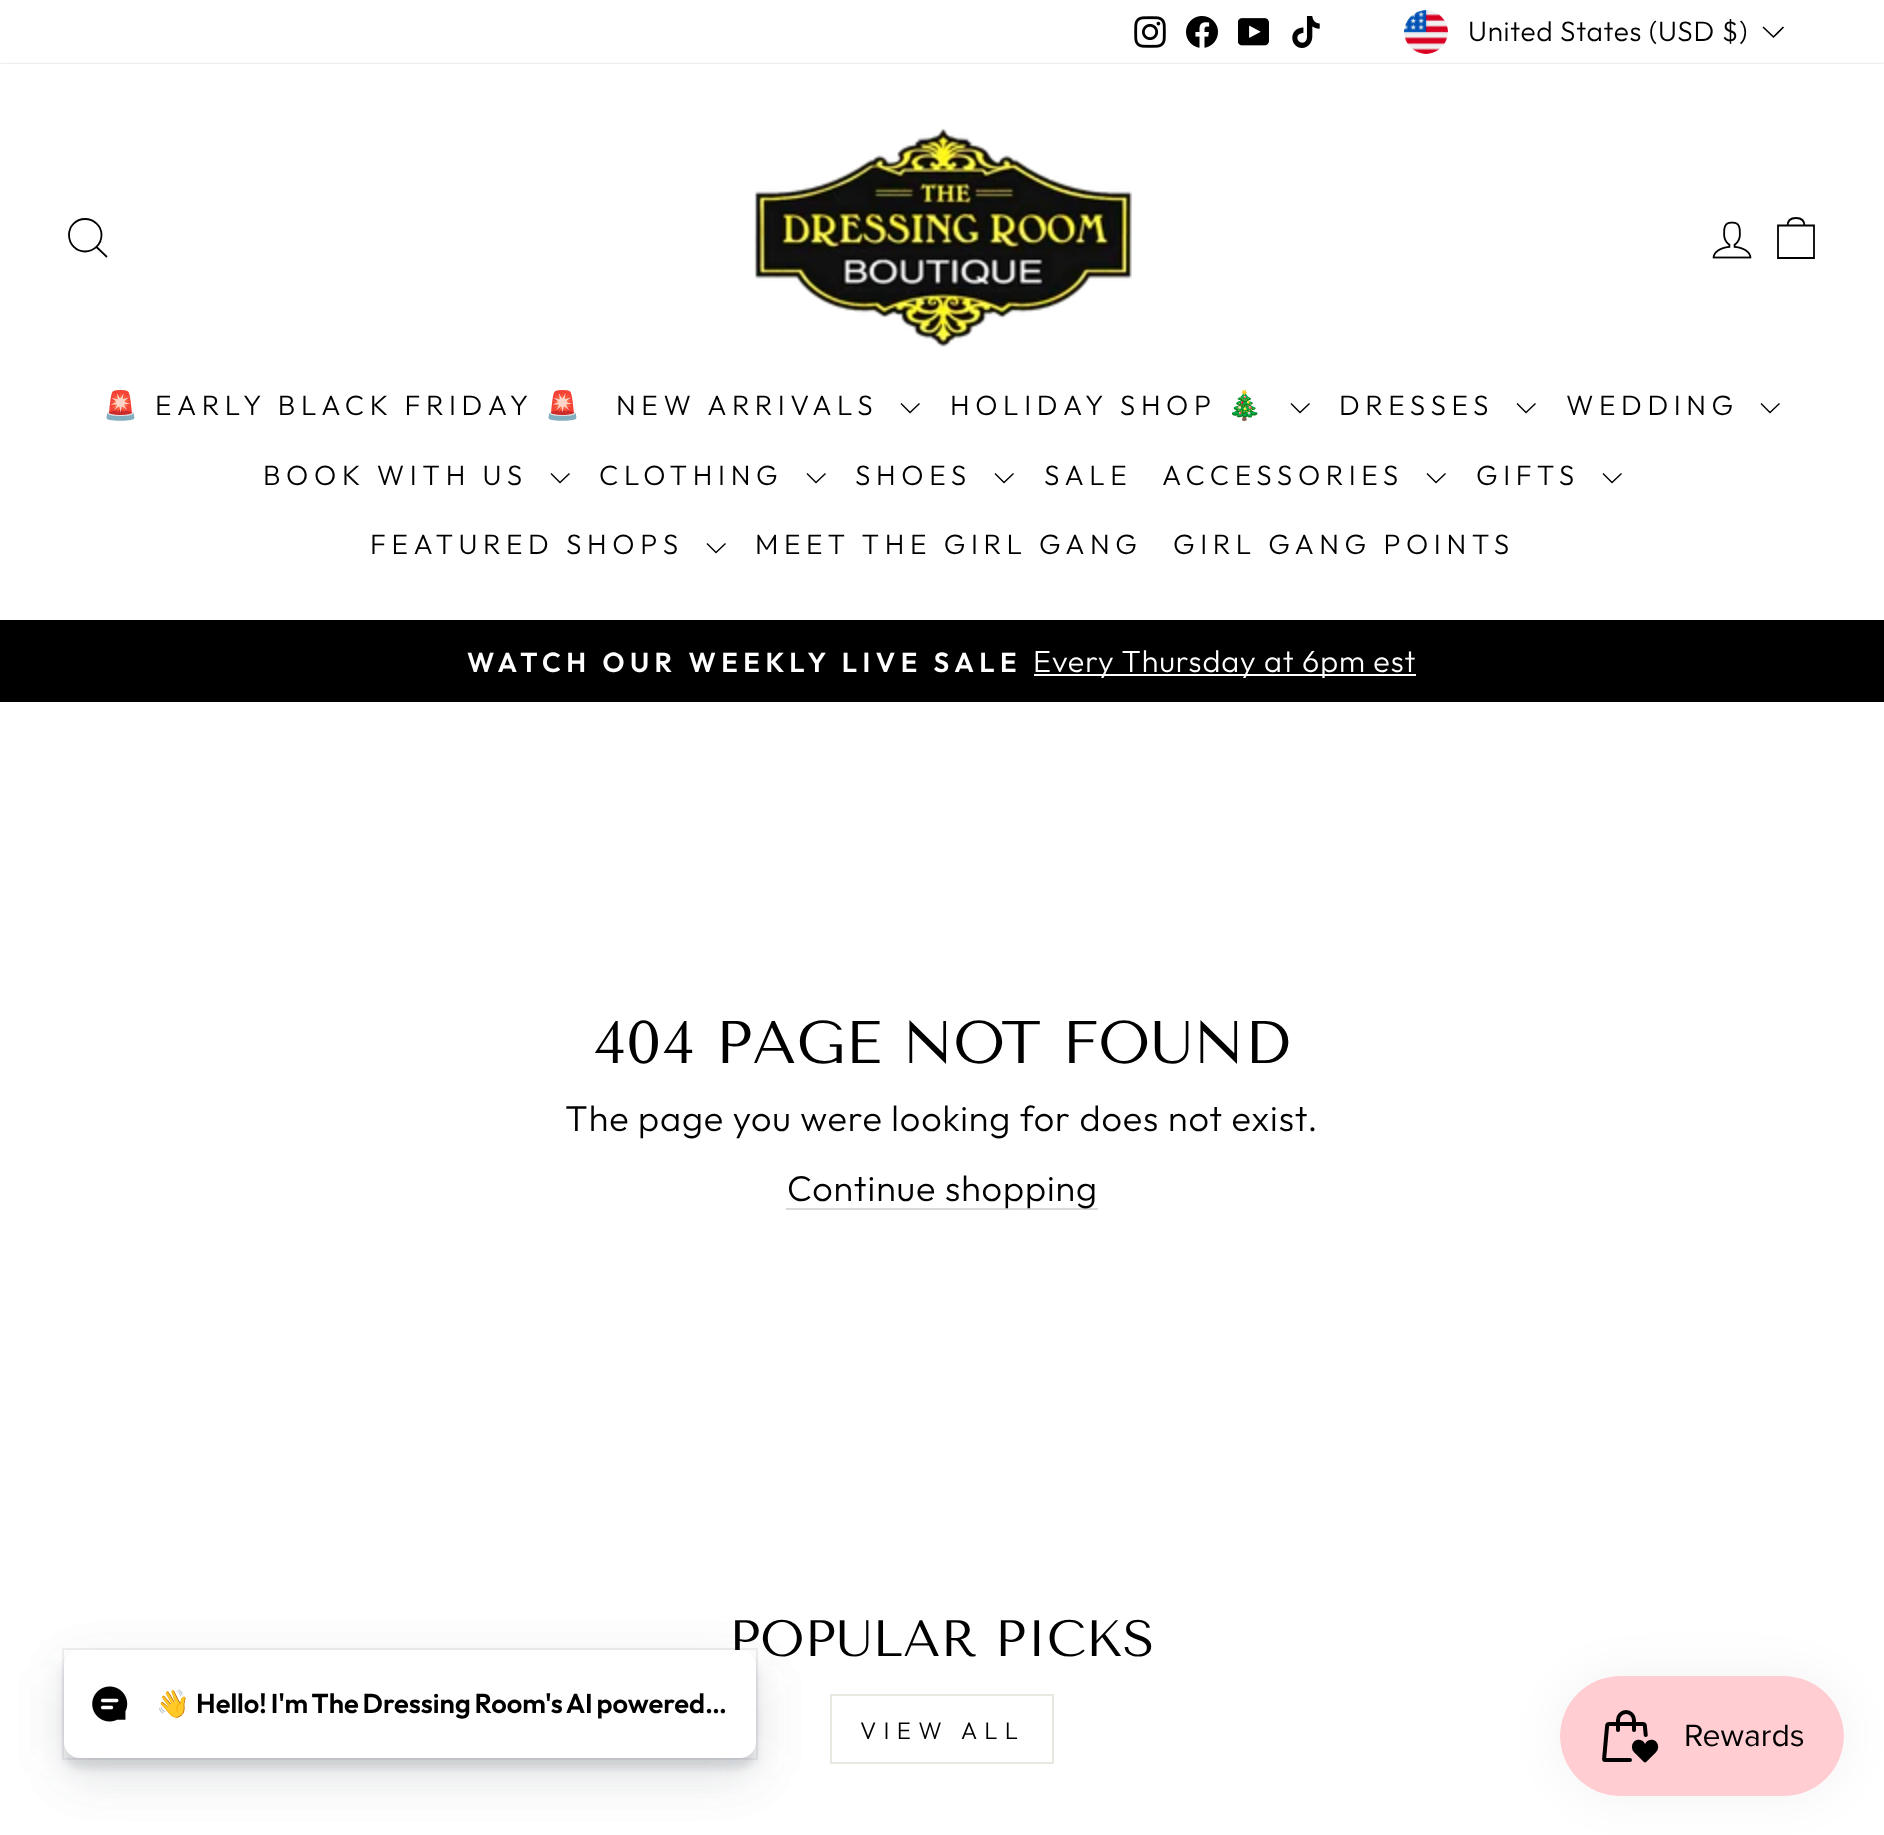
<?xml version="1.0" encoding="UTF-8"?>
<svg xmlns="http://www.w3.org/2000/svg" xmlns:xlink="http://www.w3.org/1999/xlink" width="1884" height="1835">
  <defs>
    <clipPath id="clip1"><path d="M 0 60 h 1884 v 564 h -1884 z m 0 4 h 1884 v 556 h -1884 z" clip-rule="evenodd" /></clipPath>
    <clipPath id="clip2"><rect x="156" y="1688" width="576" height="32" /></clipPath>
  </defs>
  <rect width="100%" height="100%" fill="#ffffff" />
  <image x="1134" y="16" width="32" height="32" xlink:href="image1.png" />
  <image x="1186" y="16" width="32" height="32" xlink:href="image2.png" />
  <image x="1238" y="18" width="31" height="28" xlink:href="image3.png" />
  <image x="1292" y="16" width="28" height="32" xlink:href="image4.png" />
  <image x="1404" y="10" width="44" height="44" xlink:href="image5.png" />
  <path d="M 1763 27 l 10.5 10 l 10 -10" fill="none" stroke="#000000" stroke-width="1.6" />
  <rect y="620" width="1884" height="82" fill="#000000" />
  <g clip-path="url(#clip1)">
    <rect y="64" width="1884" height="556" fill="#000000" fill-opacity="0.2" filter="blur(1px)" />
  </g>
  <path d="M 101.5 235 c 0 9 -7.5 16.5 -16.5 16.5 c -9 0 -16 -7.5 -16 -16.5 c 0 -9 7 -16 16 -16 c 9 0 16.5 7 16.5 16 z m 5.5 22 l -10.5 -10" fill="none" stroke="#000000" stroke-width="1.8" />
  <image x="754" y="128" width="378" height="219" xlink:href="image6.png" />
  <image x="1712" y="221" width="40" height="38" xlink:href="image7.png" />
  <path d="M 1778 225.5 h 36 v 32.5 h -36 z m 9.5 0.5 c 0 -6.5 4 -8 8.5 -8 c 4.5 0 8.5 1.5 8.5 8" fill="none" stroke="#000000" stroke-width="1.8" />
  <path d="M 901 403.5 l 9 9 l 9.5 -9" fill="none" stroke="#000000" stroke-width="1.4" />
  <path d="M 1291 403.5 l 9 9 l 9.5 -9" fill="none" stroke="#000000" stroke-width="1.4" />
  <path d="M 1517 403.5 l 9 9 l 9.5 -9" fill="none" stroke="#000000" stroke-width="1.4" />
  <path d="M 1761 403.5 l 9 9 l 9.5 -9" fill="none" stroke="#000000" stroke-width="1.4" />
  <path d="M 551 473.5 l 9 9 l 9.5 -9" fill="none" stroke="#000000" stroke-width="1.4" />
  <path d="M 807 473.5 l 9 9 l 9.5 -9" fill="none" stroke="#000000" stroke-width="1.4" />
  <path d="M 995 473.5 l 9 9 l 9.5 -9" fill="none" stroke="#000000" stroke-width="1.4" />
  <path d="M 1427 473.5 l 9 9 l 9.5 -9" fill="none" stroke="#000000" stroke-width="1.4" />
  <path d="M 1603 473.5 l 9 9 l 9.5 -9" fill="none" stroke="#000000" stroke-width="1.4" />
  <path d="M 707 543.5 l 9 9 l 9.5 -9" fill="none" stroke="#000000" stroke-width="1.4" />
  <rect x="1034" y="674" width="382" height="2" fill="#ffffff" />
  <rect x="786" y="1208" width="312" height="2" fill="#d9d9d9" />
  <rect x="831" y="1695" width="222" height="68" fill="none" stroke="#e8e8e1" stroke-width="2" />
  <rect x="64" y="1666" width="692" height="110" rx="16" fill="#373f47" fill-opacity="0.08" filter="blur(25px)" />
  <rect x="64" y="1658" width="692" height="110" rx="16" fill="#373f47" fill-opacity="0.08" filter="blur(4px)" />
  <rect x="1560" y="1676" width="284" height="120" rx="60" fill="#000000" fill-opacity="0.05" filter="blur(25px)" />
  <image x="1560" y="1676" width="284" height="120" xlink:href="image8.png" />
  <text x="1468" y="41" style="font-family: Outfit; font-size: 28px; font-weight: 300; letter-spacing: 0.7px; fill: #000000">United States (USD $)</text>
  <text x="103" y="415" style="font-family: Noto Color Emoji; font-size: 28px; letter-spacing: 5.6px; fill: #000000">🚨</text>
  <text x="155" y="415" style="font-family: Outfit; font-size: 28px; font-weight: 300; letter-spacing: 5.6px; fill: #000000">EARLY BLACK FRIDAY</text>
  <text x="545" y="415" style="font-family: Noto Color Emoji; font-size: 28px; letter-spacing: 5.6px; fill: #000000">🚨</text>
  <text x="616" y="415" style="font-family: Outfit; font-size: 28px; font-weight: 300; letter-spacing: 5.6px; fill: #000000">NEW ARRIVALS</text>
  <text x="950" y="415" style="font-family: Outfit; font-size: 28px; font-weight: 300; letter-spacing: 5.6px; fill: #000000">HOLIDAY SHOP</text>
  <text x="1227" y="415" style="font-family: Noto Color Emoji; font-size: 28px; letter-spacing: 5.6px; fill: #000000">🎄</text>
  <text x="1339" y="415" style="font-family: Outfit; font-size: 28px; font-weight: 300; letter-spacing: 5.6px; fill: #000000">DRESSES</text>
  <text x="1566" y="415" style="font-family: Outfit; font-size: 28px; font-weight: 300; letter-spacing: 5.6px; fill: #000000">WEDDING</text>
  <text x="263" y="485" style="font-family: Outfit; font-size: 28px; font-weight: 300; letter-spacing: 5.6px; fill: #000000">BOOK WITH US</text>
  <text x="599" y="485" style="font-family: Outfit; font-size: 28px; font-weight: 300; letter-spacing: 5.6px; fill: #000000">CLOTHING</text>
  <text x="855" y="485" style="font-family: Outfit; font-size: 28px; font-weight: 300; letter-spacing: 5.6px; fill: #000000">SHOES</text>
  <text x="1044" y="485" style="font-family: Outfit; font-size: 28px; font-weight: 300; letter-spacing: 5.6px; fill: #000000">SALE</text>
  <text x="1162" y="485" style="font-family: Outfit; font-size: 28px; font-weight: 300; letter-spacing: 5.6px; fill: #000000">ACCESSORIES</text>
  <text x="1476" y="485" style="font-family: Outfit; font-size: 28px; font-weight: 300; letter-spacing: 5.6px; fill: #000000">GIFTS</text>
  <text x="370" y="554" style="font-family: Outfit; font-size: 28px; font-weight: 300; letter-spacing: 5.6px; fill: #000000">FEATURED SHOPS</text>
  <text x="755" y="554" style="font-family: Outfit; font-size: 28px; font-weight: 300; letter-spacing: 5.6px; fill: #000000">MEET THE GIRL GANG</text>
  <text x="1173" y="554" style="font-family: Outfit; font-size: 28px; font-weight: 300; letter-spacing: 5.6px; fill: #000000">GIRL GANG POINTS</text>
  <text x="467" y="672" style="font-family: Outfit; font-size: 27.5px; font-weight: 600; letter-spacing: 5.5px; fill: #ffffff">WATCH OUR WEEKLY LIVE SALE</text>
  <text x="1033" y="672" style="font-family: Outfit; font-size: 30.6px; font-weight: 300; letter-spacing: 0.9px; fill: #ffffff">Every Thursday at 6pm est</text>
  <text x="593" y="1063" style="font-family: Tenor Sans; font-size: 60px; fill: #000000">404 PAGE NOT FOUND</text>
  <text x="565" y="1131" style="font-family: Outfit; font-size: 36px; font-weight: 300; letter-spacing: 0.9px; fill: #000000">The page you were looking for does not exist.</text>
  <text x="787" y="1201" style="font-family: Outfit; font-size: 36px; font-weight: 300; letter-spacing: 0.9px; fill: #000000">Continue shopping</text>
  <text x="729" y="1656" style="font-family: Tenor Sans; font-size: 51px; fill: #000000">POPULAR PICKS</text>
  <text x="860" y="1739" style="font-family: Outfit; font-size: 24px; font-weight: 300; letter-spacing: 7.25px; fill: #000000">VIEW ALL</text>
  <rect x="63" y="1649" width="694" height="110" fill="none" stroke="#373f47" stroke-opacity="0.04" stroke-width="2" />
  <rect x="64" y="1666" width="692" height="110" rx="16" fill="#373f47" fill-opacity="0.08" filter="blur(25px)" />
  <rect x="64" y="1658" width="692" height="110" rx="16" fill="#373f47" fill-opacity="0.08" filter="blur(4px)" />
  <rect x="63" y="1649" width="694" height="110" fill="none" stroke="#373f47" stroke-opacity="0.04" stroke-width="2" />
  <rect x="64" y="1650" width="692" height="108" rx="16" fill="#ffffff" />
  <image x="92" y="1686" width="36" height="36" xlink:href="image9.png" />
  <g clip-path="url(#clip2)">
    <text x="156" y="1713" style="font-family: Noto Color Emoji; font-size: 27.25px; fill: #000000">👋</text>
  </g>
  <text x="196" y="1713" word-spacing="-1.5" style="font-family: Outfit; font-size: 27.25px; font-weight: 600; fill: #000000">Hello! I'm The Dressing Room's AI powered…</text>
</svg>
